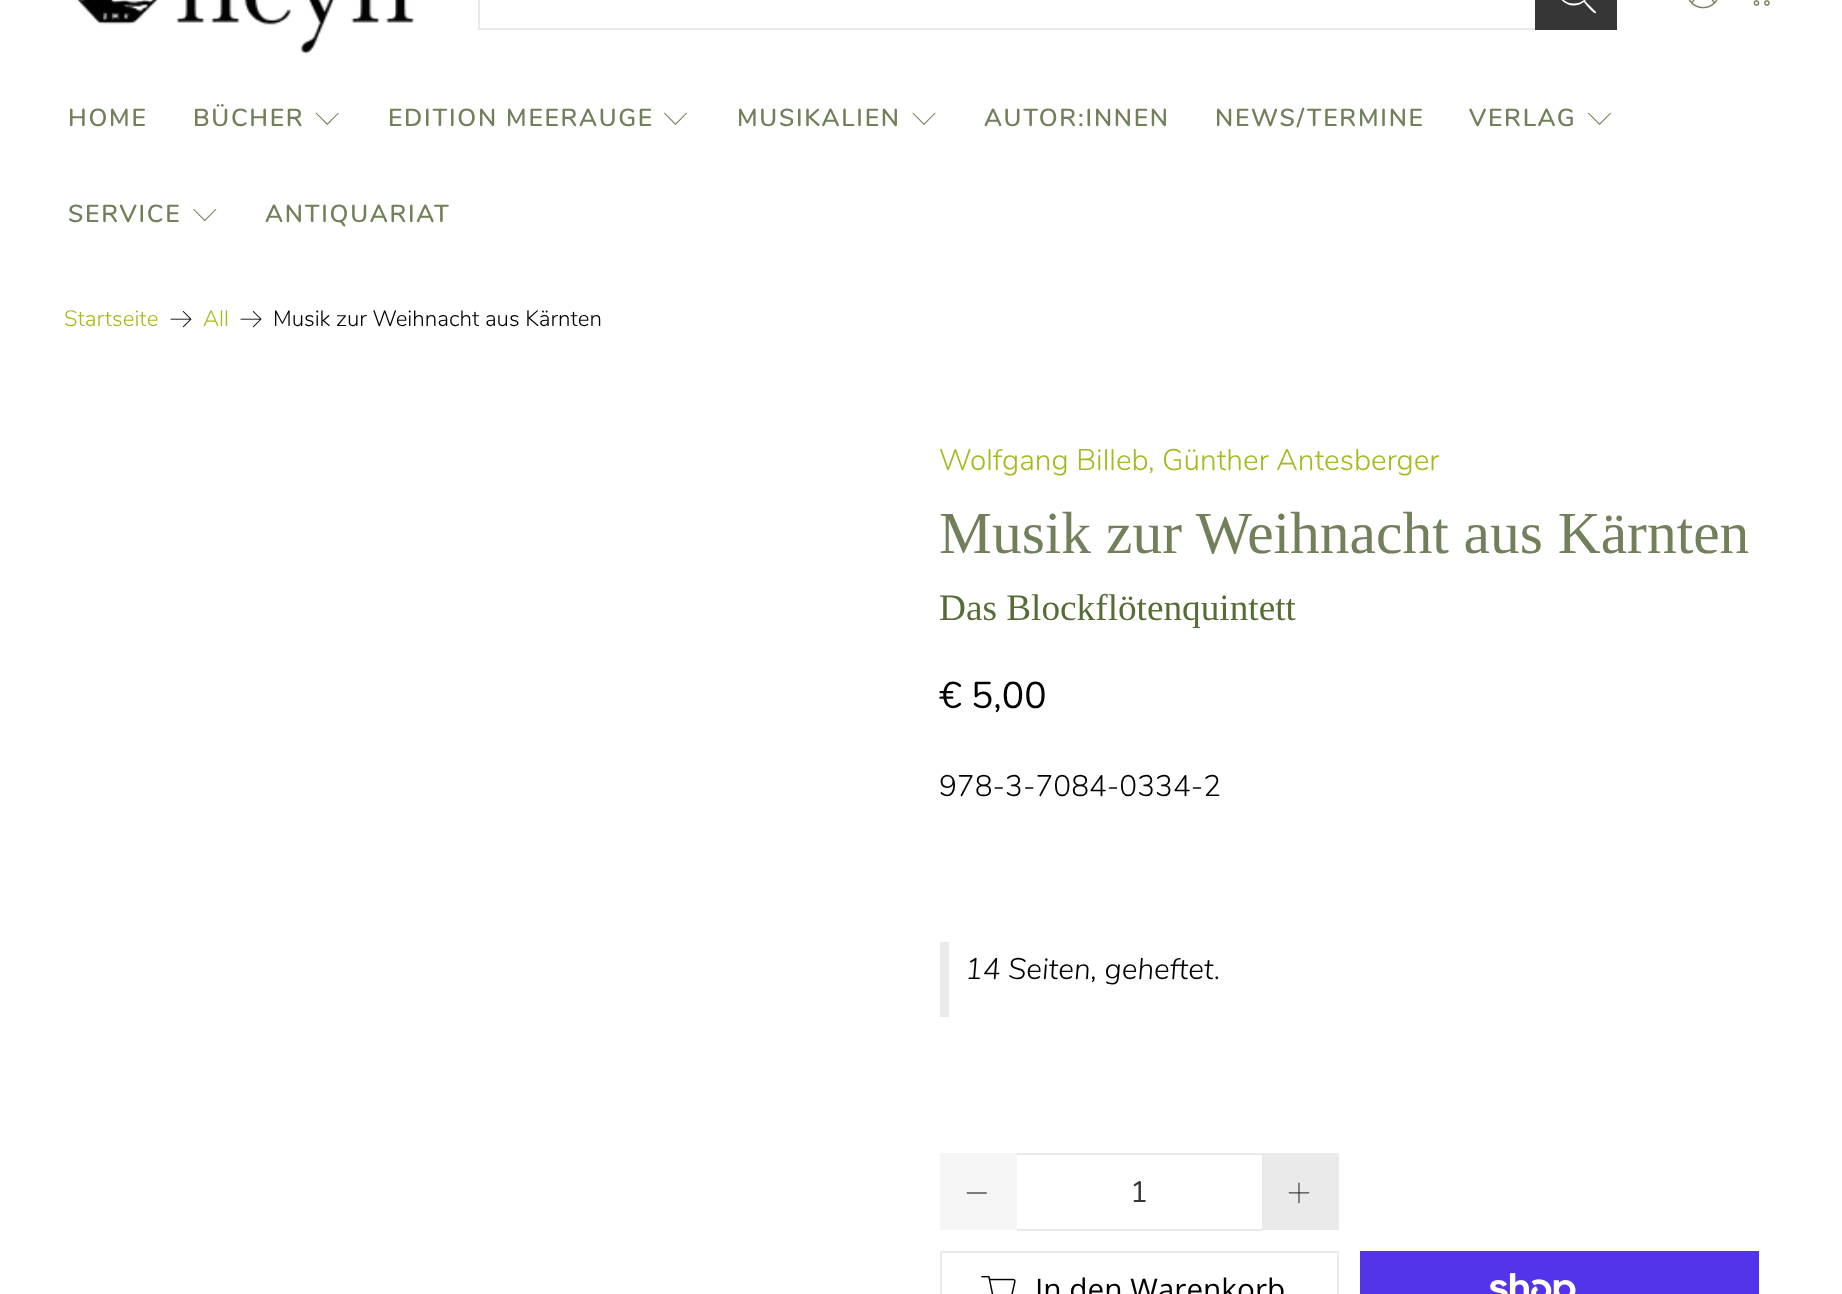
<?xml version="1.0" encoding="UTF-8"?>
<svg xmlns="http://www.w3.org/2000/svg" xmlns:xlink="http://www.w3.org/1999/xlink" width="1842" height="1294">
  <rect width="100%" height="100%" fill="#ffffff" />
  <image x="76" y="0" width="338" height="54" xlink:href="image1.png" />
  <rect x="479" y="-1" width="1057" height="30" fill="none" stroke="#eaeaea" stroke-width="2" />
  <rect x="1535" width="82" height="30" fill="#363636" />
  <path d="M 1596 12 l -11 -11 c 16 -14 -5 -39 -22 -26 c -17 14 3 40 21 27 c 2 3 11 13 12 11 z m -37 -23 c 0 -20 29 -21 30 -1 c 1 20 -30 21 -30 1 z" fill="#ffffff" />
  <image x="1688" y="0" width="30" height="9" xlink:href="image2.png" />
  <image x="1753" y="0" width="17" height="6" xlink:href="image3.png" />
  <image x="315" y="112" width="24" height="13" xlink:href="image4.png" />
  <image x="664" y="112" width="23" height="13" xlink:href="image5.png" />
  <image x="912" y="112" width="24" height="13" xlink:href="image6.png" />
  <image x="1588" y="112" width="23" height="13" xlink:href="image5.png" />
  <image x="193" y="209" width="24" height="13" xlink:href="image7.png" />
  <image x="170" y="311" width="22" height="17" xlink:href="image8.png" />
  <image x="240" y="311" width="22" height="17" xlink:href="image8.png" />
  <rect x="940" y="942" width="9" height="75" fill="#eaeaea" />
  <rect x="940" y="1153" width="77" height="77" fill="#f5f5f5" />
  <path d="M 986.5 1193.5 h -19.5 l -0.5 -1 h 20 c 0.5 0 0.5 1 0 1 z" fill="#000000" />
  <rect x="1017" y="1153" width="245" height="2" fill="#eaeaea" />
  <rect x="1017" y="1229" width="245" height="2" fill="#eaeaea" />
  <rect x="1262" y="1153" width="77" height="77" fill="#eaeaea" />
  <image x="1288" y="1182" width="22" height="22" xlink:href="image9.png" />
  <rect x="941" y="1252" width="397" height="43" fill="none" stroke="#eaeaea" stroke-width="2" />
  <image x="981" y="1275" width="35" height="19" xlink:href="image10.png" />
  <rect x="1360" y="1251" width="399" height="43" fill="#5433eb" />
  <image x="1490" y="1273" width="86" height="21" xlink:href="image11.png" />
  <text x="68" y="126" style="font-family: Nunito; font-size: 24.5px; font-weight: 600; letter-spacing: 1.75px; fill: #71805b">HOME</text>
  <text x="193" y="126" style="font-family: Nunito; font-size: 24.5px; font-weight: 600; letter-spacing: 1.75px; fill: #71805b">BÜCHER</text>
  <text x="388" y="126" style="font-family: Nunito; font-size: 24.5px; font-weight: 600; letter-spacing: 1.75px; fill: #71805b">EDITION MEERAUGE</text>
  <text x="737" y="126" style="font-family: Nunito; font-size: 24.5px; font-weight: 600; letter-spacing: 1.75px; fill: #71805b">MUSIKALIEN</text>
  <text x="984" y="126" style="font-family: Nunito; font-size: 24.5px; font-weight: 600; letter-spacing: 1.75px; fill: #71805b">AUTOR:INNEN</text>
  <text x="1215" y="126" style="font-family: Nunito; font-size: 24.5px; font-weight: 600; letter-spacing: 1.75px; fill: #71805b">NEWS/TERMINE</text>
  <text x="1469" y="126" style="font-family: Nunito; font-size: 24.5px; font-weight: 600; letter-spacing: 1.75px; fill: #71805b">VERLAG</text>
  <text x="68" y="222" style="font-family: Nunito; font-size: 24.5px; font-weight: 600; letter-spacing: 1.75px; fill: #71805b">SERVICE</text>
  <text x="265" y="222" style="font-family: Nunito; font-size: 24.5px; font-weight: 600; letter-spacing: 1.75px; fill: #71805b">ANTIQUARIAT</text>
  <text x="64" y="326" style="font-family: Nunito; font-size: 22.25px; font-weight: 300; fill: #9fbd1f">Startseite</text>
  <text x="203" y="326" style="font-family: Nunito; font-size: 22.25px; font-weight: 300; fill: #9fbd1f">All</text>
  <text x="273" y="326" style="font-family: Nunito; font-size: 22.25px; font-weight: 300; fill: #000000">Musik zur Weihnacht aus Kärnten</text>
  <text x="939" y="470" style="font-family: Nunito; font-size: 29.75px; font-weight: 300; fill: #9fbd1f">Wolfgang Billeb, Günther Antesberger</text>
  <text x="939" y="553" style="font-family: Liberation Serif; font-size: 59.5px; fill: #71805b">Musik zur Weihnacht aus Kärnten</text>
  <text x="939" y="620" style="font-family: Liberation Serif; font-size: 37.25px; fill: #566c35">Das Blockflötenquintett</text>
  <text x="939" y="708" style="font-family: Nunito; font-size: 37.25px; fill: #000000">€ 5,00</text>
  <text x="939" y="796" style="font-family: Nunito; font-size: 29.75px; font-weight: 300; fill: #000000">978-3-7084-0334-2</text>
  <text x="965" y="979" style="font-family: Nunito; font-size: 29.75px; font-weight: 300; font-style: italic; fill: #000000">14 Seiten, geheftet.</text>
  <text x="1130" y="1202" style="font-family: Nunito; font-size: 29.75px; fill: #363636">1</text>
  <text x="1035" y="1300" style="font-family: Open Sans; font-size: 29.75px; fill: #000000">In den Warenkorb</text>
</svg>
